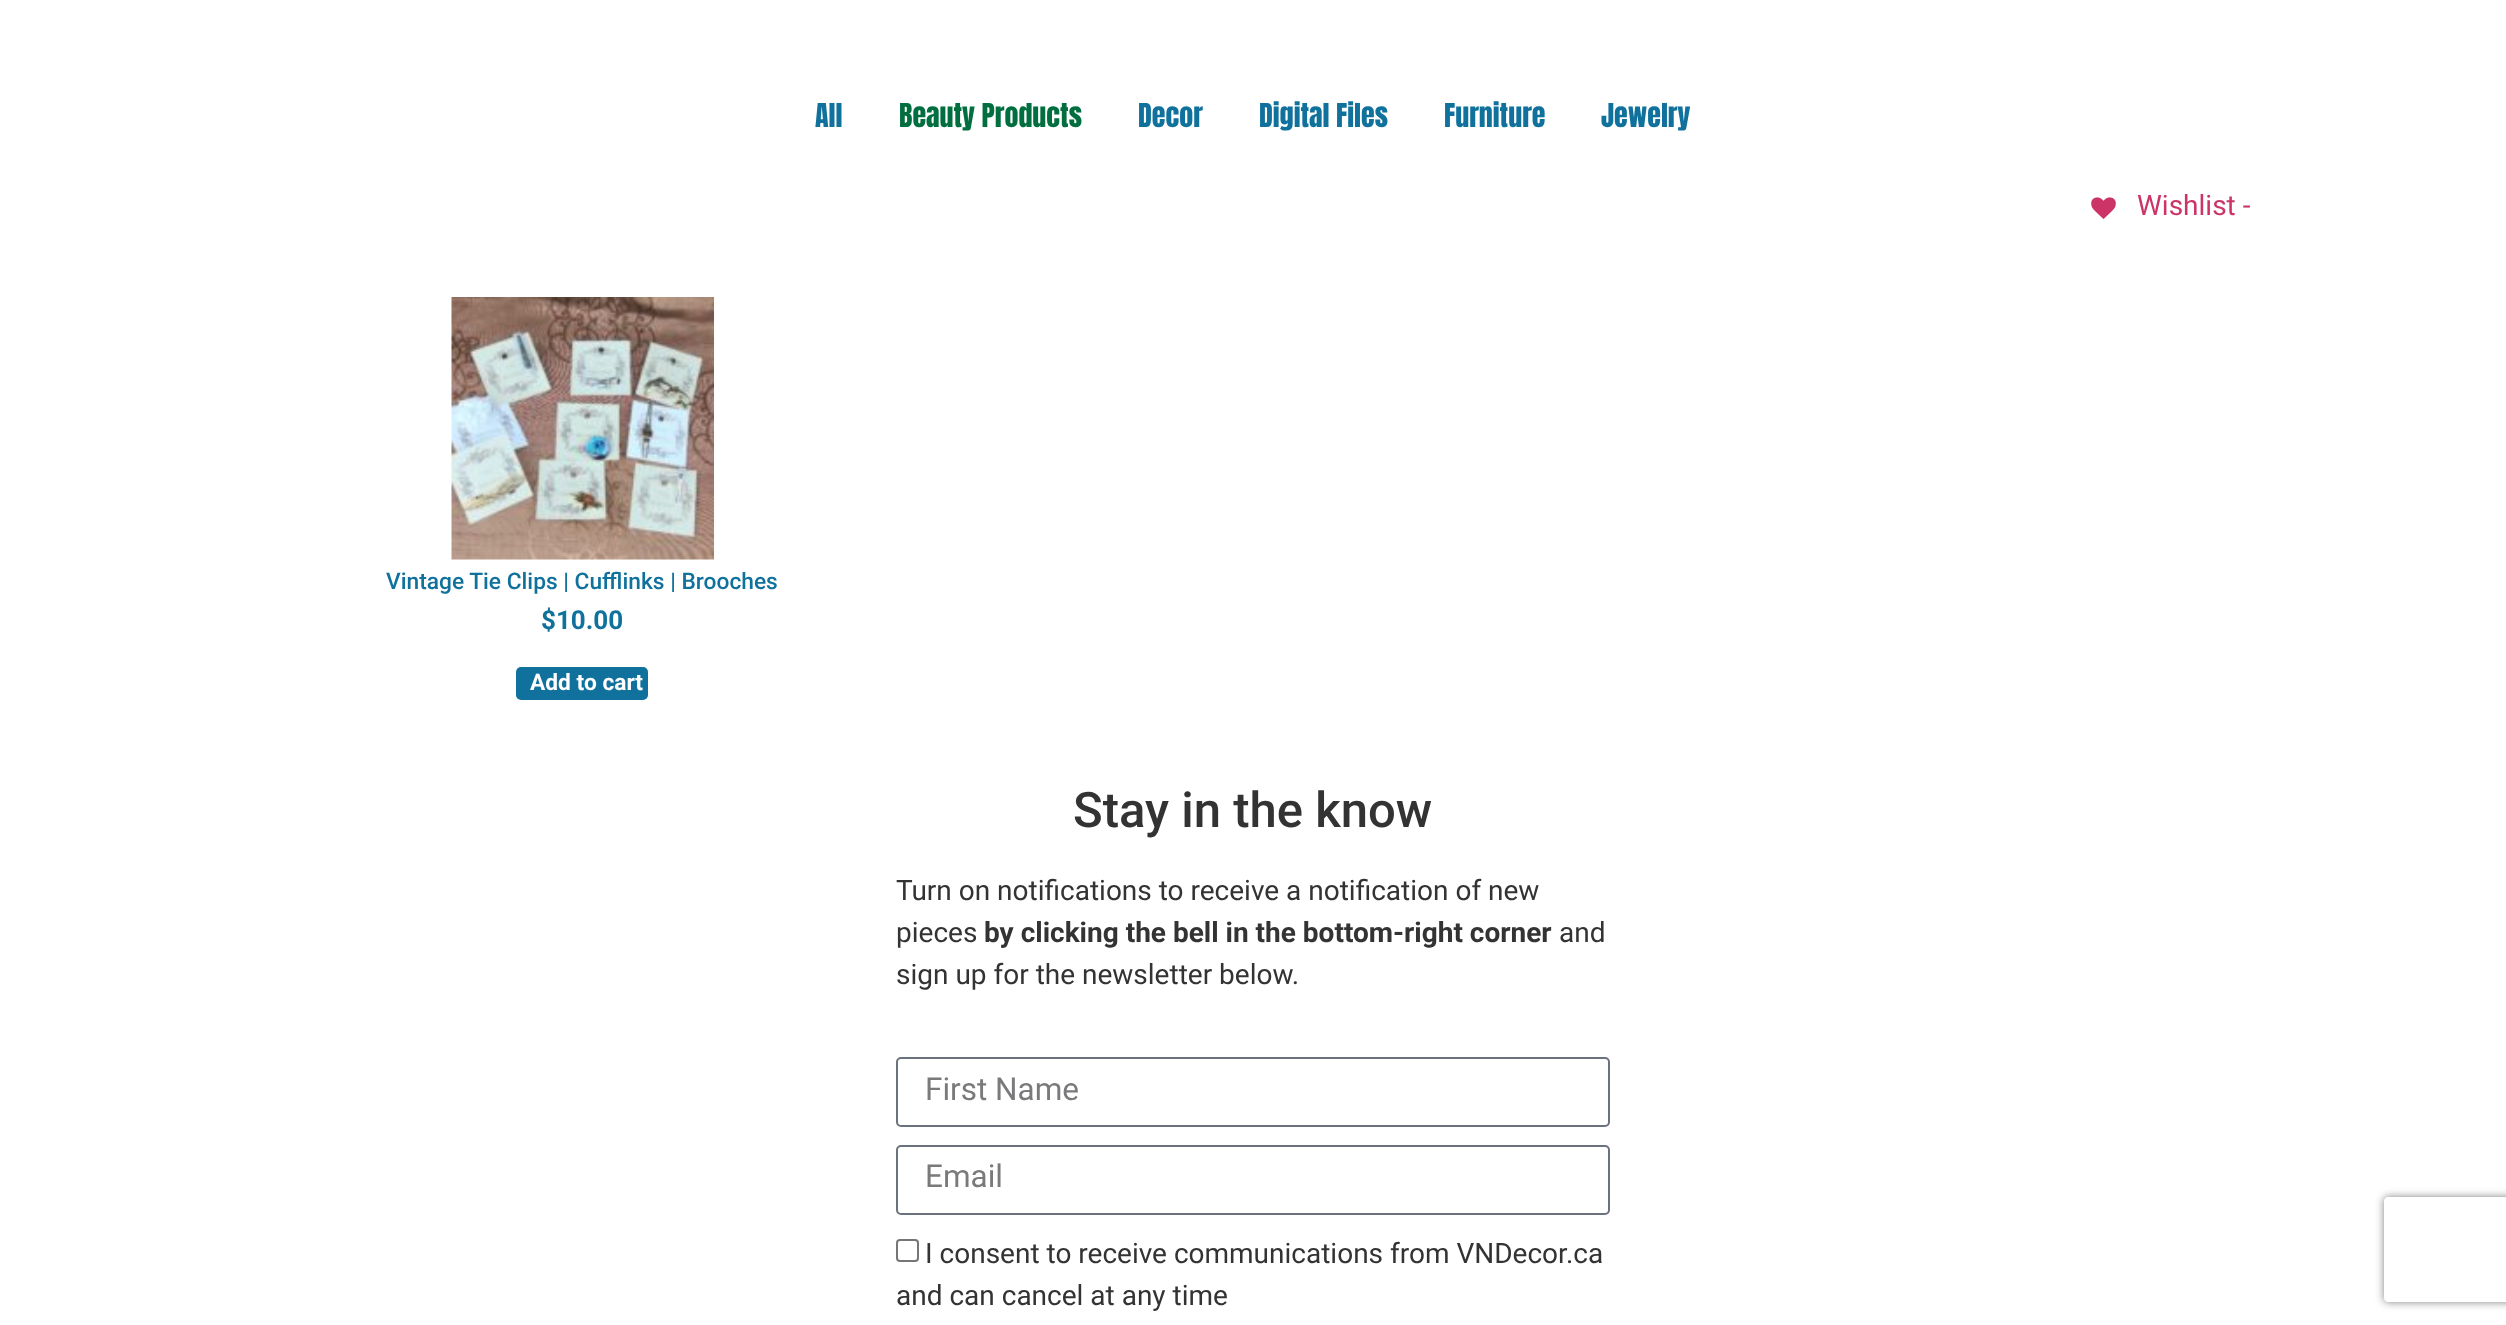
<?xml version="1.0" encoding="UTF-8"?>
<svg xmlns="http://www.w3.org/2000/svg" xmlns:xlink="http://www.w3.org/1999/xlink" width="2506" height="1325">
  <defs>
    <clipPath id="clip1"><path d="M 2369 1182 h 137 v 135 h -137 z m 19 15 h 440 c 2 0 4 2 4 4 v 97 c 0 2 -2 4 -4 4 h -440 c -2 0 -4 -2 -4 -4 v -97 c 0 -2 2 -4 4 -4 z" clip-rule="evenodd" /></clipPath>
  </defs>
  <rect width="100%" height="100%" fill="#ffffff" />
  <image x="2091" y="197" width="25" height="22" xlink:href="image1.png" />
  <image x="451" y="297" width="263" height="263" xlink:href="image2.png" />
  <rect x="516" y="667" width="132" height="33" rx="5" fill="#10729c" />
  <rect x="897" y="1058" width="712" height="68" rx="4" fill="none" stroke="#69727d" stroke-width="2" />
  <rect x="897" y="1146" width="712" height="68" rx="4" fill="none" stroke="#69727d" stroke-width="2" />
  <rect x="897" y="1240" width="21" height="21" rx="3" fill="none" stroke="#767676" stroke-width="2" />
  <g clip-path="url(#clip1)">
    <rect x="2384" y="1197" width="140" height="105" rx="4" fill="#808080" filter="blur(4.5px)" />
  </g>
  <text x="815" y="127" style="font-family: Anton; font-size: 28px; fill: #10729c">All</text>
  <text x="899" y="127" style="font-family: Anton; font-size: 28px; fill: #006e3f">Beauty Products</text>
  <text x="1138" y="127" style="font-family: Anton; font-size: 28px; fill: #10729c">Decor</text>
  <text x="1259" y="127" style="font-family: Anton; font-size: 28px; fill: #10729c">Digital Files</text>
  <text x="1444" y="127" style="font-family: Anton; font-size: 28px; fill: #10729c">Furniture</text>
  <text x="1601" y="127" style="font-family: Anton; font-size: 28px; fill: #10729c">Jewelry</text>
  <text x="2137" y="215" style="font-family: Roboto; font-size: 28px; fill: #cc3366">Wishlist -</text>
  <text x="386" y="589" style="font-family: Roboto; font-size: 22.75px; font-weight: 500; fill: #10729c">Vintage Tie Clips | Cufflinks | Brooches</text>
  <text x="541" y="629" style="font-family: Roboto; font-size: 26px; font-weight: bold; fill: #10729c">$10.00</text>
  <text x="530" y="690" style="font-family: Roboto; font-size: 22.75px; font-weight: bold; fill: #ffffff">Add to cart</text>
  <text x="1073" y="827" style="font-family: Roboto; font-size: 49px; font-weight: 500; fill: #333333">Stay in the know</text>
  <text x="896" y="900" style="font-family: Roboto; font-size: 28px; fill: #333333">Turn on notifications to receive a notification of new</text>
  <text x="896" y="942" style="font-family: Roboto; font-size: 28px; fill: #333333">pieces</text>
  <text x="984" y="942" style="font-family: Roboto; font-size: 28px; font-weight: bold; fill: #333333">by clicking the bell in the bottom-right corner</text>
  <text x="1559" y="942" style="font-family: Roboto; font-size: 28px; fill: #333333">and</text>
  <text x="896" y="984" style="font-family: Roboto; font-size: 28px; fill: #333333">sign up for the newsletter below.</text>
  <text x="925" y="1100" style="font-family: Roboto; font-size: 31.5px; fill: #797a7c">First Name</text>
  <text x="925" y="1187" style="font-family: Roboto; font-size: 31.5px; fill: #797a7c">Email</text>
  <text x="925" y="1263" style="font-family: Roboto; font-size: 28px; fill: #333333">I consent to receive communications from VNDecor.ca</text>
  <text x="896" y="1305" style="font-family: Roboto; font-size: 28px; fill: #333333">and can cancel at any time</text>
</svg>
